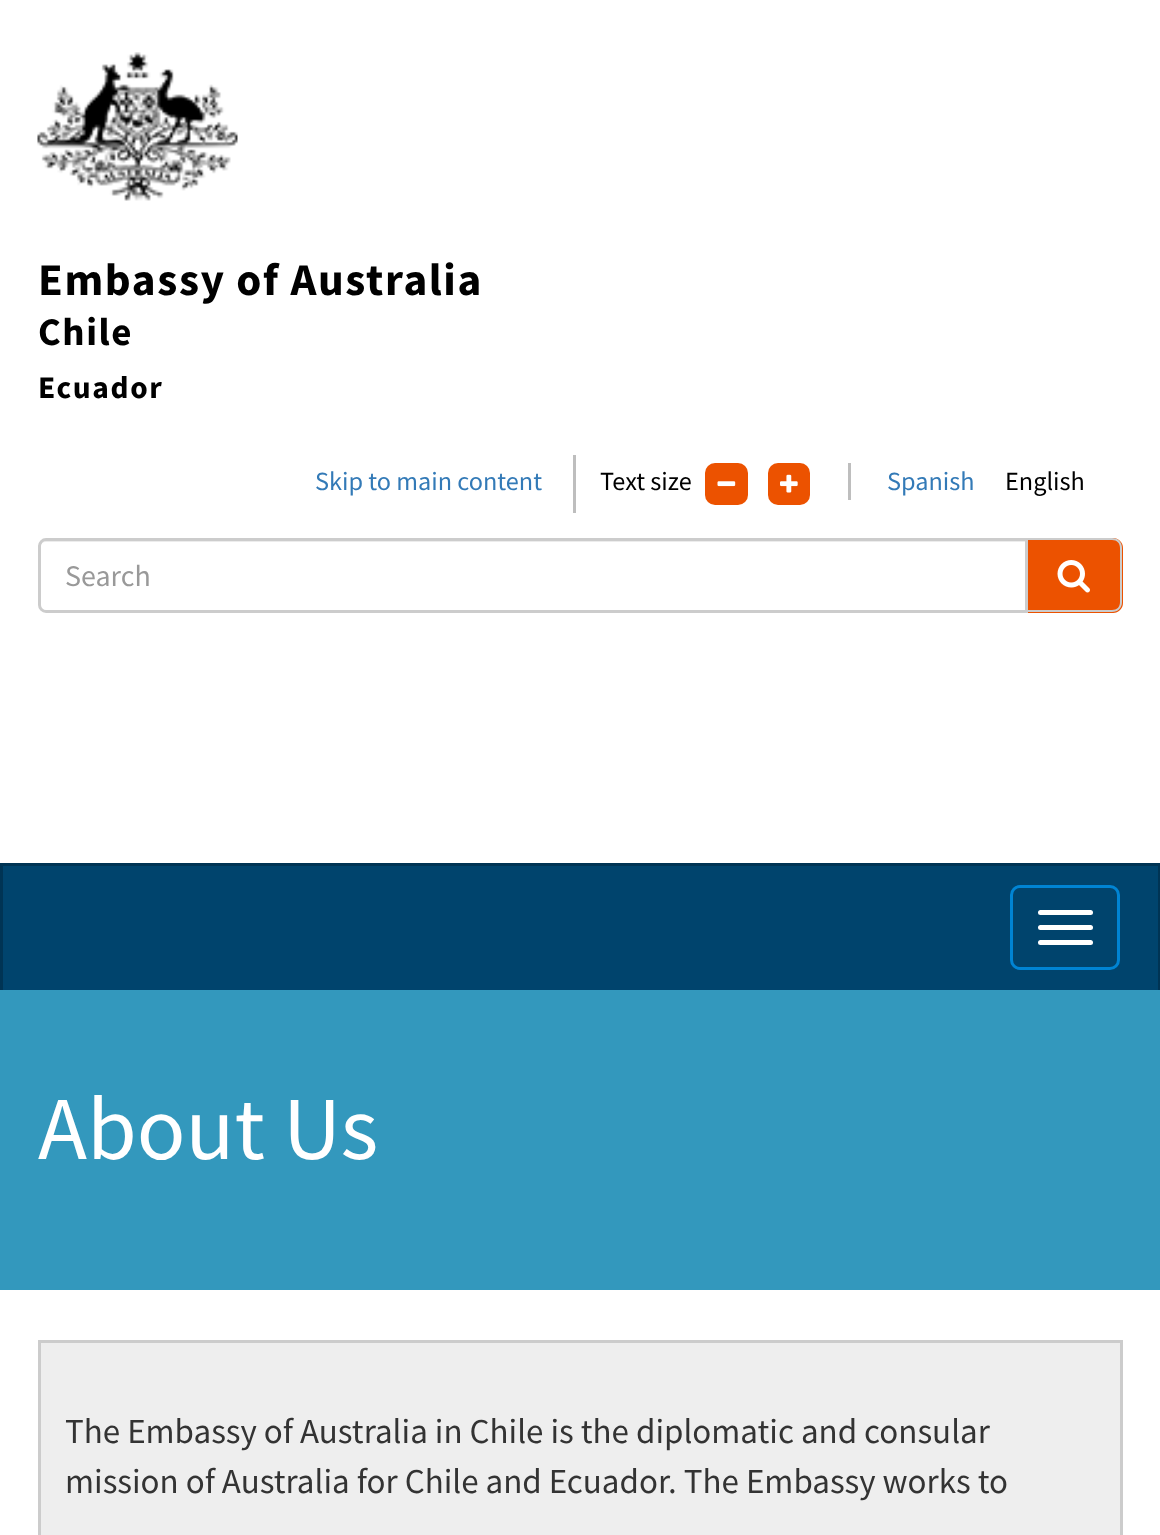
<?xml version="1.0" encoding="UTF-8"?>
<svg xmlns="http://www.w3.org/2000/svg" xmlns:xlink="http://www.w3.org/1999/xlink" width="1160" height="1535">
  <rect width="100%" height="100%" fill="#ffffff" />
  <image x="37" y="52" width="201" height="149" xlink:href="image1.png" />
  <rect x="573" y="455" width="3" height="58" fill="#bebebe" />
  <rect x="705" y="463" width="43" height="42" rx="10" fill="#ec5200" />
  <image x="717" y="481" width="19" height="6" xlink:href="image2.png" />
  <rect x="768" y="463" width="42" height="42" rx="10" fill="#ec5200" />
  <image x="780" y="474" width="18" height="19" xlink:href="image3.png" />
  <rect x="848" y="463" width="3" height="37" fill="#bebebe" />
  <path d="M 45 542 h 980 v -2 h -980 c -3 0 -5 2 -5 5 v 3 c 0 -3 2 -6 5 -6 z" fill="#ececec" />
  <path d="M 46 539.5 h 980.5 v 72 h -980.5 c -3.5 0 -6.5 -3 -6.5 -6.5 v -59 c 0 -3.5 3 -6.5 6.5 -6.5 z" fill="none" stroke="#cccccc" stroke-width="3" />
  <path d="M 1028 538 h 85 c 5.5 0 10 4.5 10 10 v 55 c 0 5.5 -4.5 10 -10 10 h -85 z" fill="#ec5200" />
  <path d="M 1028 538 h 84 c 6 0 10 4 10 10 v 54 c 0 6 -4 10 -10 10 h -84 z m 0 2 h 84 c 5 0 8 3 8 8 v 54 c 0 5 -3 8 -8 8 h -84 z" fill="#cccccc" fill-rule="evenodd" />
  <image x="1057" y="560" width="33" height="33" xlink:href="image4.png" />
  <rect x="3" y="866" width="1155" height="124" fill="#00446d" />
  <rect y="863" width="1160" height="3" fill="#003454" />
  <rect x="1158" y="863" width="2" height="127" fill="#003454" />
  <rect y="863" width="3" height="127" fill="#003454" />
  <rect x="1011.5" y="886.5" width="107" height="82" rx="8.5" fill="none" stroke="#0084d3" stroke-width="3" />
  <rect x="1038" y="910" width="55" height="5" rx="2.5" fill="#ffffff" />
  <rect x="1038" y="925" width="55" height="5" rx="2.5" fill="#ffffff" />
  <rect x="1038" y="940" width="55" height="5" rx="2.5" fill="#ffffff" />
  <rect y="990" width="1160" height="300" fill="#3398bd" />
  <rect x="39.5" y="1341.5" width="1082" height="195" fill="#eeeeee" stroke="#cccccc" stroke-width="3" />
  <text x="38" y="295" style="font-family: Source Sans Pro; font-size: 45.25px; font-weight: bold; letter-spacing: 1.6px; fill: #000000">Embassy of Australia</text>
  <text x="38" y="345" style="font-family: Source Sans Pro; font-size: 39px; font-weight: bold; letter-spacing: 1.6px; fill: #000000">Chile</text>
  <text x="38" y="398" style="font-family: Source Sans Pro; font-size: 31.5px; font-weight: bold; letter-spacing: 1.6px; fill: #000000">Ecuador</text>
  <text x="315" y="490" style="font-family: Source Sans Pro; font-size: 26.25px; fill: #337ab7">Skip to main content</text>
  <text x="600" y="490" style="font-family: Source Sans Pro; font-size: 26.25px; fill: #000000">Text size</text>
  <text x="887" y="490" style="font-family: Source Sans Pro; font-size: 26.25px; fill: #337ab7">Spanish</text>
  <text x="1005" y="490" style="font-family: Source Sans Pro; font-size: 26.25px; fill: #000000">English</text>
  <text x="65" y="586" style="font-family: Source Sans Pro; font-size: 30px; fill: #999999">Search</text>
  <text x="38" y="1159" style="font-family: Source Sans Pro; font-size: 90px; fill: #ffffff">About Us</text>
  <text x="65" y="1443" style="font-family: Source Sans Pro; font-size: 35px; fill: #333333">The Embassy of Australia in Chile is the diplomatic and consular</text>
  <text x="65" y="1493" style="font-family: Source Sans Pro; font-size: 35px; fill: #333333">mission of Australia for Chile and Ecuador. The Embassy works to</text>
</svg>
